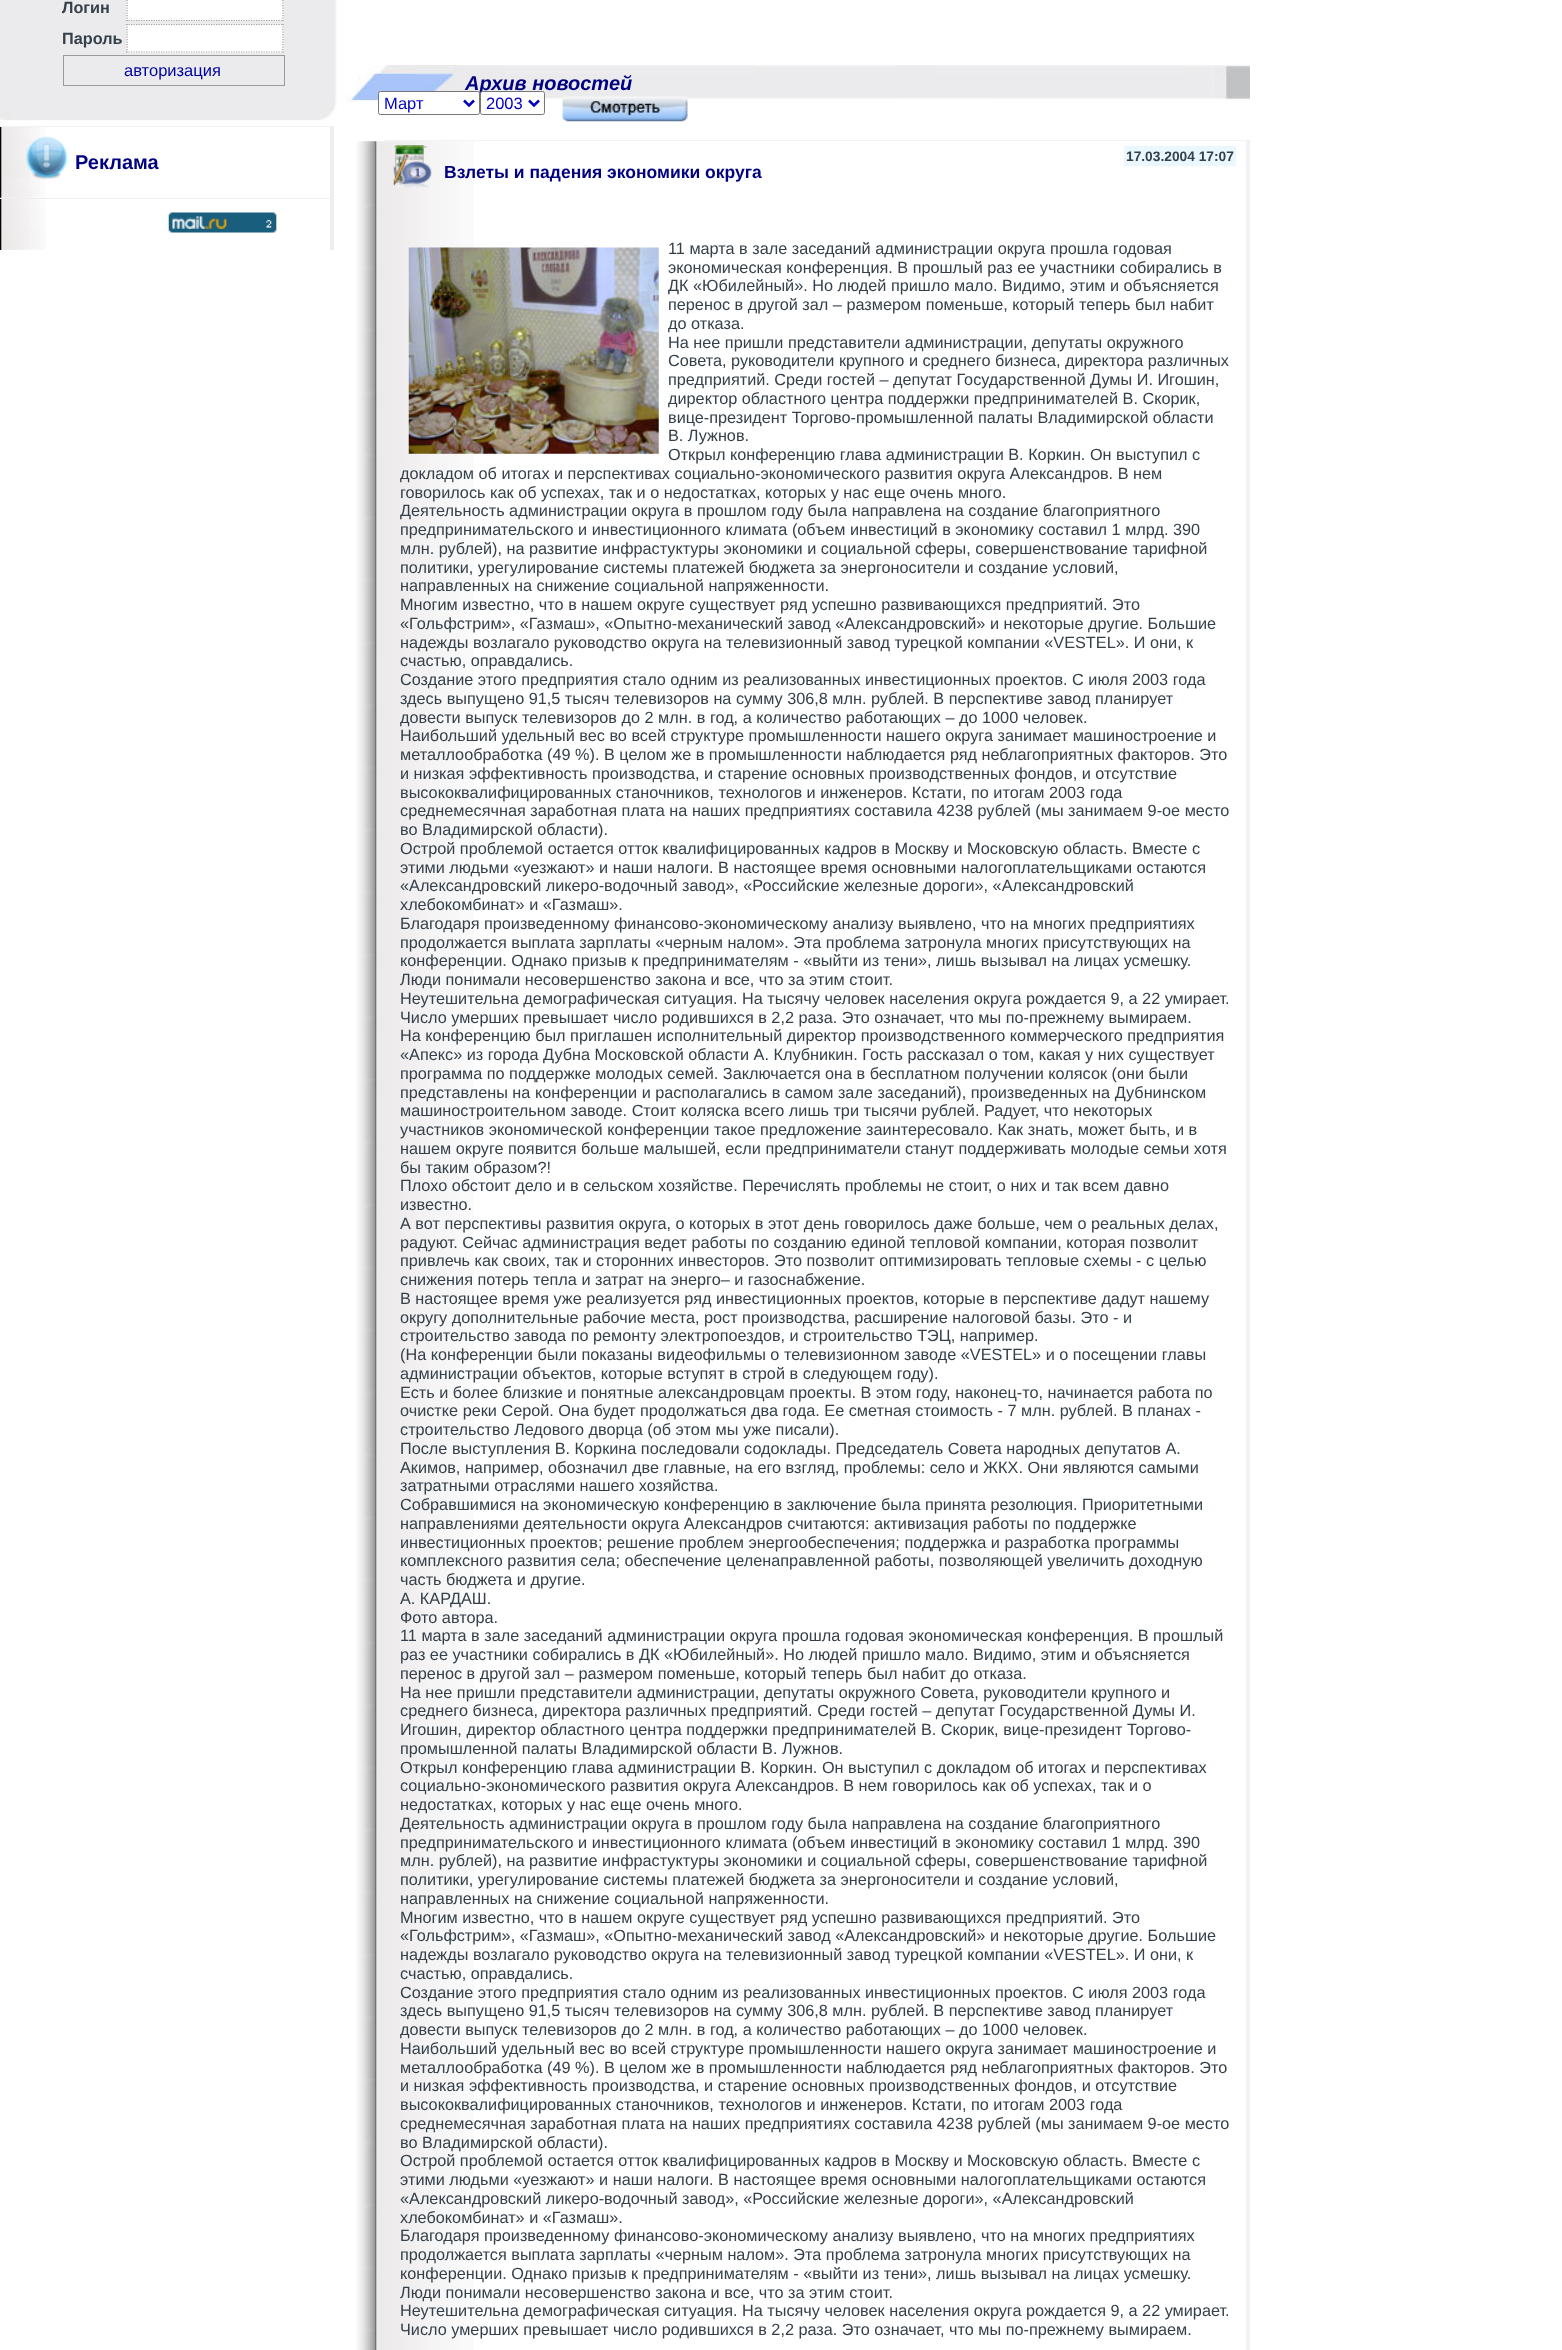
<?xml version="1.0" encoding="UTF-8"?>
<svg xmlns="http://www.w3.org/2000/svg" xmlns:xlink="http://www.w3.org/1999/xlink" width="1562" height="2350">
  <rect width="100%" height="100%" fill="#ffffff" />
  <image x="0" y="0" width="337" height="100" xlink:href="image1.png" />
  <rect x="126" width="158" height="21" fill="#ffffff" />
  <path d="M 283 -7.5 v 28.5" fill="none" stroke="#9b9b9b" stroke-width="1.2" stroke-dasharray="1.25 1.25" />
  <path d="M 126 20.5 h 158" fill="none" stroke="#9b9b9b" stroke-width="1.2" stroke-dasharray="1.25 1.25" />
  <path d="M 127 -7.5 v 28.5" fill="none" stroke="#9b9b9b" stroke-width="1.2" stroke-dasharray="1.25 1.25" />
  <rect x="126" y="24" width="158" height="29" fill="#ffffff" />
  <path d="M 126 24.5 h 158" fill="none" stroke="#9b9b9b" stroke-width="1.2" stroke-dasharray="1.25 1.25" />
  <path d="M 283 24 v 28.5" fill="none" stroke="#9b9b9b" stroke-width="1.2" stroke-dasharray="1.25 1.25" />
  <path d="M 126 52 h 158" fill="none" stroke="#9b9b9b" stroke-width="1.2" stroke-dasharray="1.25 1.25" />
  <path d="M 127 24 v 28.5" fill="none" stroke="#9b9b9b" stroke-width="1.2" stroke-dasharray="1.25 1.25" />
  <rect x="63.5" y="55.5" width="221" height="30" fill="none" stroke="#9b9b9b" />
  <rect y="126" width="334" height="1" fill="#eeeeee" />
  <rect x="330" y="126" width="4" height="72" fill="#eeeeee" />
  <image x="0" y="100" width="337" height="27" xlink:href="image2.png" />
  <image x="0" y="127" width="46" height="71" xlink:href="image3.png" />
  <image x="25" y="136" width="43" height="43" xlink:href="image4.png" />
  <image x="0" y="197" width="46" height="53" xlink:href="image5.png" />
  <rect y="198" width="334" height="1" fill="#eeeeee" />
  <rect x="330" y="198" width="4" height="52" fill="#eeeeee" />
  <image x="168" y="212" width="109" height="21" xlink:href="image6.png" />
  <image x="346" y="65" width="119" height="38" xlink:href="image7.png" />
  <image x="465" y="65" width="748" height="34" xlink:href="image8.png" />
  <image x="1212" y="65" width="38" height="37" xlink:href="image9.png" />
  <image x="562" y="96" width="126" height="26" xlink:href="image10.png" />
  <rect x="384" y="140" width="866" height="1" fill="#f2f2f2" />
  <image x="356" y="141" width="118" height="2209" xlink:href="image11.png" />
  <rect x="1246" y="141" width="4" height="2209" fill="#f2f2f2" />
  <rect x="1124" y="146" width="112" height="20" fill="#eaf7ff" />
  <image x="393" y="145" width="39" height="43" xlink:href="image12.png" />
  <image x="408" y="247" width="251" height="207" xlink:href="image13.png" />
  <text x="62" y="13" style="font-family: Liberation Sans; font-size: 16.25px; font-weight: bold; fill: #35404a">Логин</text>
  <text x="62" y="44" style="font-family: Liberation Sans; font-size: 16.25px; font-weight: bold; fill: #35404a">Пароль</text>
  <text x="124" y="76" style="font-family: Liberation Sans; font-size: 16.5px; fill: #0000a0">авторизация</text>
  <text x="75" y="169" style="font-family: Liberation Sans; font-size: 20px; font-weight: bold; fill: #000080">Реклама</text>
  <text x="465" y="90" style="font-family: Liberation Sans; font-size: 20px; font-weight: bold; font-style: italic; fill: #000080">Архив новостей</text>
  <rect x="378.5" y="91.5" width="101" height="23" rx="2" fill="#ffffff" stroke="#767676" />
  <path d="M 464 100.5 l 5 5 l 5 -5" fill="none" stroke="#0000c1" stroke-width="2.5" />
  <text x="384" y="109" style="font-family: Liberation Sans; font-size: 16.5px; fill: #0000c1">Март</text>
  <rect x="480.5" y="91.5" width="64" height="23" rx="2" fill="#ffffff" stroke="#767676" />
  <path d="M 529 100.5 l 5 5 l 5 -5" fill="none" stroke="#0000c1" stroke-width="2.5" />
  <text x="486" y="109" style="font-family: Liberation Sans; font-size: 16.5px; fill: #0000c1">2003</text>
  <text x="1126" y="161" style="font-family: Liberation Sans; font-size: 13.75px; font-weight: bold; fill: #35404a">17.03.2004 17:07</text>
  <text x="444" y="178" style="font-family: Liberation Sans; font-size: 17.5px; font-weight: bold; fill: #000080">Взлеты и падения экономики округа</text>
  <text x="668" y="254" style="font-family: Liberation Sans; font-size: 16.25px; fill: #35404a">11 марта в зале заседаний администрации округа прошла годовая</text>
  <text x="668" y="273" style="font-family: Liberation Sans; font-size: 16.25px; fill: #35404a">экономическая конференция. В прошлый раз ее участники собирались в</text>
  <text x="668" y="291" style="font-family: Liberation Sans; font-size: 16.25px; fill: #35404a">ДК «Юбилейный». Но людей пришло мало. Видимо, этим и объясняется</text>
  <text x="668" y="310" style="font-family: Liberation Sans; font-size: 16.25px; fill: #35404a">перенос в другой зал – размером поменьше, который теперь был набит</text>
  <text x="668" y="329" style="font-family: Liberation Sans; font-size: 16.25px; fill: #35404a">до отказа.</text>
  <text x="668" y="348" style="font-family: Liberation Sans; font-size: 16.25px; fill: #35404a">На нее пришли представители администрации, депутаты окружного</text>
  <text x="668" y="366" style="font-family: Liberation Sans; font-size: 16.25px; fill: #35404a">Совета, руководители крупного и среднего бизнеса, директора различных</text>
  <text x="668" y="385" style="font-family: Liberation Sans; font-size: 16.25px; fill: #35404a">предприятий. Среди гостей – депутат Государственной Думы И. Игошин,</text>
  <text x="668" y="404" style="font-family: Liberation Sans; font-size: 16.25px; fill: #35404a">директор областного центра поддержки предпринимателей В. Скорик,</text>
  <text x="668" y="423" style="font-family: Liberation Sans; font-size: 16.25px; fill: #35404a">вице-президент Торгово-промышленной палаты Владимирской области</text>
  <text x="668" y="441" style="font-family: Liberation Sans; font-size: 16.25px; fill: #35404a">В. Лужнов.</text>
  <text x="668" y="460" style="font-family: Liberation Sans; font-size: 16.25px; fill: #35404a">Открыл конференцию глава администрации В. Коркин. Он выступил с</text>
  <text x="400" y="479" style="font-family: Liberation Sans; font-size: 16.25px; fill: #35404a">докладом об итогах и перспективах социально-экономического развития округа Александров. В нем</text>
  <text x="400" y="498" style="font-family: Liberation Sans; font-size: 16.25px; fill: #35404a">говорилось как об успехах, так и о недостатках, которых у нас еще очень много.</text>
  <text x="400" y="516" style="font-family: Liberation Sans; font-size: 16.25px; fill: #35404a">Деятельность администрации округа в прошлом году была направлена на создание благоприятного</text>
  <text x="400" y="535" style="font-family: Liberation Sans; font-size: 16.25px; fill: #35404a">предпринимательского и инвестиционного климата (объем инвестиций в экономику составил 1 млрд. 390</text>
  <text x="400" y="554" style="font-family: Liberation Sans; font-size: 16.25px; fill: #35404a">млн. рублей), на развитие инфрастуктуры экономики и социальной сферы, совершенствование тарифной</text>
  <text x="400" y="573" style="font-family: Liberation Sans; font-size: 16.25px; fill: #35404a">политики, урегулирование системы платежей бюджета за энергоносители и создание условий,</text>
  <text x="400" y="591" style="font-family: Liberation Sans; font-size: 16.25px; fill: #35404a">направленных на снижение социальной напряженности.</text>
  <text x="400" y="610" style="font-family: Liberation Sans; font-size: 16.25px; fill: #35404a">Многим известно, что в нашем округе существует ряд успешно развивающихся предприятий. Это</text>
  <text x="400" y="629" style="font-family: Liberation Sans; font-size: 16.25px; fill: #35404a">«Гольфстрим», «Газмаш», «Опытно-механический завод «Александровский» и некоторые другие. Большие</text>
  <text x="400" y="648" style="font-family: Liberation Sans; font-size: 16.25px; fill: #35404a">надежды возлагало руководство округа на телевизионный завод турецкой компании «VESTEL». И они, к</text>
  <text x="400" y="666" style="font-family: Liberation Sans; font-size: 16.25px; fill: #35404a">счастью, оправдались.</text>
  <text x="400" y="685" style="font-family: Liberation Sans; font-size: 16.25px; fill: #35404a">Создание этого предприятия стало одним из реализованных инвестиционных проектов. С июля 2003 года</text>
  <text x="400" y="704" style="font-family: Liberation Sans; font-size: 16.25px; fill: #35404a">здесь выпущено 91,5 тысяч телевизоров на сумму 306,8 млн. рублей. В перспективе завод планирует</text>
  <text x="400" y="723" style="font-family: Liberation Sans; font-size: 16.25px; fill: #35404a">довести выпуск телевизоров до 2 млн. в год, а количество работающих – до 1000 человек.</text>
  <text x="400" y="741" style="font-family: Liberation Sans; font-size: 16.25px; fill: #35404a">Наибольший удельный вес во всей структуре промышленности нашего округа занимает машиностроение и</text>
  <text x="400" y="760" style="font-family: Liberation Sans; font-size: 16.25px; fill: #35404a">металлообработка (49 %). В целом же в промышленности наблюдается ряд неблагоприятных факторов. Это</text>
  <text x="400" y="779" style="font-family: Liberation Sans; font-size: 16.25px; fill: #35404a">и низкая эффективность производства, и старение основных производственных фондов, и отсутствие</text>
  <text x="400" y="798" style="font-family: Liberation Sans; font-size: 16.25px; fill: #35404a">высококвалифицированных станочников, технологов и инженеров. Кстати, по итогам 2003 года</text>
  <text x="400" y="816" style="font-family: Liberation Sans; font-size: 16.25px; fill: #35404a">среднемесячная заработная плата на наших предприятиях составила 4238 рублей (мы занимаем 9-ое место</text>
  <text x="400" y="835" style="font-family: Liberation Sans; font-size: 16.25px; fill: #35404a">во Владимирской области).</text>
  <text x="400" y="854" style="font-family: Liberation Sans; font-size: 16.25px; fill: #35404a">Острой проблемой остается отток квалифицированных кадров в Москву и Московскую область. Вместе с</text>
  <text x="400" y="873" style="font-family: Liberation Sans; font-size: 16.25px; fill: #35404a">этими людьми «уезжают» и наши налоги. В настоящее время основными налогоплательщиками остаются</text>
  <text x="400" y="891" style="font-family: Liberation Sans; font-size: 16.25px; fill: #35404a">«Александровский ликеро-водочный завод», «Российские железные дороги», «Александровский</text>
  <text x="400" y="910" style="font-family: Liberation Sans; font-size: 16.25px; fill: #35404a">хлебокомбинат» и «Газмаш».</text>
  <text x="400" y="929" style="font-family: Liberation Sans; font-size: 16.25px; fill: #35404a">Благодаря произведенному финансово-экономическому анализу выявлено, что на многих предприятиях</text>
  <text x="400" y="948" style="font-family: Liberation Sans; font-size: 16.25px; fill: #35404a">продолжается выплата зарплаты «черным налом». Эта проблема затронула многих присутствующих на</text>
  <text x="400" y="966" style="font-family: Liberation Sans; font-size: 16.25px; fill: #35404a">конференции. Однако призыв к предпринимателям - «выйти из тени», лишь вызывал на лицах усмешку.</text>
  <text x="400" y="985" style="font-family: Liberation Sans; font-size: 16.25px; fill: #35404a">Люди понимали несовершенство закона и все, что за этим стоит.</text>
  <text x="400" y="1004" style="font-family: Liberation Sans; font-size: 16.25px; fill: #35404a">Неутешительна демографическая ситуация. На тысячу человек населения округа рождается 9, а 22 умирает.</text>
  <text x="400" y="1023" style="font-family: Liberation Sans; font-size: 16.25px; fill: #35404a">Число умерших превышает число родившихся в 2,2 раза. Это означает, что мы по-прежнему вымираем.</text>
  <text x="400" y="1041" style="font-family: Liberation Sans; font-size: 16.25px; fill: #35404a">На конференцию был приглашен исполнительный директор производственного коммерческого предприятия</text>
  <text x="400" y="1060" style="font-family: Liberation Sans; font-size: 16.25px; fill: #35404a">«Апекс» из города Дубна Московской области А. Клубникин. Гость рассказал о том, какая у них существует</text>
  <text x="400" y="1079" style="font-family: Liberation Sans; font-size: 16.25px; fill: #35404a">программа по поддержке молодых семей. Заключается она в бесплатном получении колясок (они были</text>
  <text x="400" y="1098" style="font-family: Liberation Sans; font-size: 16.25px; fill: #35404a">представлены на конференции и располагались в самом зале заседаний), произведенных на Дубнинском</text>
  <text x="400" y="1116" style="font-family: Liberation Sans; font-size: 16.25px; fill: #35404a">машиностроительном заводе. Стоит коляска всего лишь три тысячи рублей. Радует, что некоторых</text>
  <text x="400" y="1135" style="font-family: Liberation Sans; font-size: 16.25px; fill: #35404a">участников экономической конференции такое предложение заинтересовало. Как знать, может быть, и в</text>
  <text x="400" y="1154" style="font-family: Liberation Sans; font-size: 16.25px; fill: #35404a">нашем округе появится больше малышей, если предприниматели станут поддерживать молодые семьи хотя</text>
  <text x="400" y="1173" style="font-family: Liberation Sans; font-size: 16.25px; fill: #35404a">бы таким образом?!</text>
  <text x="400" y="1191" style="font-family: Liberation Sans; font-size: 16.25px; fill: #35404a">Плохо обстоит дело и в сельском хозяйстве. Перечислять проблемы не стоит, о них и так всем давно</text>
  <text x="400" y="1210" style="font-family: Liberation Sans; font-size: 16.25px; fill: #35404a">известно.</text>
  <text x="400" y="1229" style="font-family: Liberation Sans; font-size: 16.25px; fill: #35404a">А вот перспективы развития округа, о которых в этот день говорилось даже больше, чем о реальных делах,</text>
  <text x="400" y="1248" style="font-family: Liberation Sans; font-size: 16.25px; fill: #35404a">радуют. Сейчас администрация ведет работы по созданию единой тепловой компании, которая позволит</text>
  <text x="400" y="1266" style="font-family: Liberation Sans; font-size: 16.25px; fill: #35404a">привлечь как своих, так и сторонних инвесторов. Это позволит оптимизировать тепловые схемы - с целью</text>
  <text x="400" y="1285" style="font-family: Liberation Sans; font-size: 16.25px; fill: #35404a">снижения потерь тепла и затрат на энерго– и газоснабжение.</text>
  <text x="400" y="1304" style="font-family: Liberation Sans; font-size: 16.25px; fill: #35404a">В настоящее время уже реализуется ряд инвестиционных проектов, которые в перспективе дадут нашему</text>
  <text x="400" y="1323" style="font-family: Liberation Sans; font-size: 16.25px; fill: #35404a">округу дополнительные рабочие места, рост производства, расширение налоговой базы. Это - и</text>
  <text x="400" y="1341" style="font-family: Liberation Sans; font-size: 16.25px; fill: #35404a">строительство завода по ремонту электропоездов, и строительство ТЭЦ, например.</text>
  <text x="400" y="1360" style="font-family: Liberation Sans; font-size: 16.25px; fill: #35404a">(На конференции были показаны видеофильмы о телевизионном заводе «VESTEL» и о посещении главы</text>
  <text x="400" y="1379" style="font-family: Liberation Sans; font-size: 16.25px; fill: #35404a">администрации объектов, которые вступят в строй в следующем году).</text>
  <text x="400" y="1398" style="font-family: Liberation Sans; font-size: 16.25px; fill: #35404a">Есть и более близкие и понятные александровцам проекты. В этом году, наконец-то, начинается работа по</text>
  <text x="400" y="1416" style="font-family: Liberation Sans; font-size: 16.25px; fill: #35404a">очистке реки Серой. Она будет продолжаться два года. Ее сметная стоимость - 7 млн. рублей. В планах -</text>
  <text x="400" y="1435" style="font-family: Liberation Sans; font-size: 16.25px; fill: #35404a">строительство Ледового дворца (об этом мы уже писали).</text>
  <text x="400" y="1454" style="font-family: Liberation Sans; font-size: 16.25px; fill: #35404a">После выступления В. Коркина последовали содоклады. Председатель Совета народных депутатов А.</text>
  <text x="400" y="1473" style="font-family: Liberation Sans; font-size: 16.25px; fill: #35404a">Акимов, например, обозначил две главные, на его взгляд, проблемы: село и ЖКХ. Они являются самыми</text>
  <text x="400" y="1491" style="font-family: Liberation Sans; font-size: 16.25px; fill: #35404a">затратными отраслями нашего хозяйства.</text>
  <text x="400" y="1510" style="font-family: Liberation Sans; font-size: 16.25px; fill: #35404a">Собравшимися на экономическую конференцию в заключение была принята резолюция. Приоритетными</text>
  <text x="400" y="1529" style="font-family: Liberation Sans; font-size: 16.25px; fill: #35404a">направлениями деятельности округа Александров считаются: активизация работы по поддержке</text>
  <text x="400" y="1548" style="font-family: Liberation Sans; font-size: 16.25px; fill: #35404a">инвестиционных проектов; решение проблем энергообеспечения; поддержка и разработка программы</text>
  <text x="400" y="1566" style="font-family: Liberation Sans; font-size: 16.25px; fill: #35404a">комплексного развития села; обеспечение целенаправленной работы, позволяющей увеличить доходную</text>
  <text x="400" y="1585" style="font-family: Liberation Sans; font-size: 16.25px; fill: #35404a">часть бюджета и другие.</text>
  <text x="400" y="1604" style="font-family: Liberation Sans; font-size: 16.25px; fill: #35404a">А. КАРДАШ.</text>
  <text x="400" y="1623" style="font-family: Liberation Sans; font-size: 16.25px; fill: #35404a">Фото автора.</text>
  <text x="400" y="1641" style="font-family: Liberation Sans; font-size: 16.25px; fill: #35404a">11 марта в зале заседаний администрации округа прошла годовая экономическая конференция. В прошлый</text>
  <text x="400" y="1660" style="font-family: Liberation Sans; font-size: 16.25px; fill: #35404a">раз ее участники собирались в ДК «Юбилейный». Но людей пришло мало. Видимо, этим и объясняется</text>
  <text x="400" y="1679" style="font-family: Liberation Sans; font-size: 16.25px; fill: #35404a">перенос в другой зал – размером поменьше, который теперь был набит до отказа.</text>
  <text x="400" y="1698" style="font-family: Liberation Sans; font-size: 16.25px; fill: #35404a">На нее пришли представители администрации, депутаты окружного Совета, руководители крупного и</text>
  <text x="400" y="1716" style="font-family: Liberation Sans; font-size: 16.25px; fill: #35404a">среднего бизнеса, директора различных предприятий. Среди гостей – депутат Государственной Думы И.</text>
  <text x="400" y="1735" style="font-family: Liberation Sans; font-size: 16.25px; fill: #35404a">Игошин, директор областного центра поддержки предпринимателей В. Скорик, вице-президент Торгово-</text>
  <text x="400" y="1754" style="font-family: Liberation Sans; font-size: 16.25px; fill: #35404a">промышленной палаты Владимирской области В. Лужнов.</text>
  <text x="400" y="1773" style="font-family: Liberation Sans; font-size: 16.25px; fill: #35404a">Открыл конференцию глава администрации В. Коркин. Он выступил с докладом об итогах и перспективах</text>
  <text x="400" y="1791" style="font-family: Liberation Sans; font-size: 16.25px; fill: #35404a">социально-экономического развития округа Александров. В нем говорилось как об успехах, так и о</text>
  <text x="400" y="1810" style="font-family: Liberation Sans; font-size: 16.25px; fill: #35404a">недостатках, которых у нас еще очень много.</text>
  <text x="400" y="1829" style="font-family: Liberation Sans; font-size: 16.25px; fill: #35404a">Деятельность администрации округа в прошлом году была направлена на создание благоприятного</text>
  <text x="400" y="1848" style="font-family: Liberation Sans; font-size: 16.25px; fill: #35404a">предпринимательского и инвестиционного климата (объем инвестиций в экономику составил 1 млрд. 390</text>
  <text x="400" y="1866" style="font-family: Liberation Sans; font-size: 16.25px; fill: #35404a">млн. рублей), на развитие инфрастуктуры экономики и социальной сферы, совершенствование тарифной</text>
  <text x="400" y="1885" style="font-family: Liberation Sans; font-size: 16.25px; fill: #35404a">политики, урегулирование системы платежей бюджета за энергоносители и создание условий,</text>
  <text x="400" y="1904" style="font-family: Liberation Sans; font-size: 16.25px; fill: #35404a">направленных на снижение социальной напряженности.</text>
  <text x="400" y="1923" style="font-family: Liberation Sans; font-size: 16.25px; fill: #35404a">Многим известно, что в нашем округе существует ряд успешно развивающихся предприятий. Это</text>
  <text x="400" y="1941" style="font-family: Liberation Sans; font-size: 16.25px; fill: #35404a">«Гольфстрим», «Газмаш», «Опытно-механический завод «Александровский» и некоторые другие. Большие</text>
  <text x="400" y="1960" style="font-family: Liberation Sans; font-size: 16.25px; fill: #35404a">надежды возлагало руководство округа на телевизионный завод турецкой компании «VESTEL». И они, к</text>
  <text x="400" y="1979" style="font-family: Liberation Sans; font-size: 16.25px; fill: #35404a">счастью, оправдались.</text>
  <text x="400" y="1998" style="font-family: Liberation Sans; font-size: 16.25px; fill: #35404a">Создание этого предприятия стало одним из реализованных инвестиционных проектов. С июля 2003 года</text>
  <text x="400" y="2016" style="font-family: Liberation Sans; font-size: 16.25px; fill: #35404a">здесь выпущено 91,5 тысяч телевизоров на сумму 306,8 млн. рублей. В перспективе завод планирует</text>
  <text x="400" y="2035" style="font-family: Liberation Sans; font-size: 16.25px; fill: #35404a">довести выпуск телевизоров до 2 млн. в год, а количество работающих – до 1000 человек.</text>
  <text x="400" y="2054" style="font-family: Liberation Sans; font-size: 16.25px; fill: #35404a">Наибольший удельный вес во всей структуре промышленности нашего округа занимает машиностроение и</text>
  <text x="400" y="2073" style="font-family: Liberation Sans; font-size: 16.25px; fill: #35404a">металлообработка (49 %). В целом же в промышленности наблюдается ряд неблагоприятных факторов. Это</text>
  <text x="400" y="2091" style="font-family: Liberation Sans; font-size: 16.25px; fill: #35404a">и низкая эффективность производства, и старение основных производственных фондов, и отсутствие</text>
  <text x="400" y="2110" style="font-family: Liberation Sans; font-size: 16.25px; fill: #35404a">высококвалифицированных станочников, технологов и инженеров. Кстати, по итогам 2003 года</text>
  <text x="400" y="2129" style="font-family: Liberation Sans; font-size: 16.25px; fill: #35404a">среднемесячная заработная плата на наших предприятиях составила 4238 рублей (мы занимаем 9-ое место</text>
  <text x="400" y="2148" style="font-family: Liberation Sans; font-size: 16.25px; fill: #35404a">во Владимирской области).</text>
  <text x="400" y="2166" style="font-family: Liberation Sans; font-size: 16.25px; fill: #35404a">Острой проблемой остается отток квалифицированных кадров в Москву и Московскую область. Вместе с</text>
  <text x="400" y="2185" style="font-family: Liberation Sans; font-size: 16.25px; fill: #35404a">этими людьми «уезжают» и наши налоги. В настоящее время основными налогоплательщиками остаются</text>
  <text x="400" y="2204" style="font-family: Liberation Sans; font-size: 16.25px; fill: #35404a">«Александровский ликеро-водочный завод», «Российские железные дороги», «Александровский</text>
  <text x="400" y="2223" style="font-family: Liberation Sans; font-size: 16.25px; fill: #35404a">хлебокомбинат» и «Газмаш».</text>
  <text x="400" y="2241" style="font-family: Liberation Sans; font-size: 16.25px; fill: #35404a">Благодаря произведенному финансово-экономическому анализу выявлено, что на многих предприятиях</text>
  <text x="400" y="2260" style="font-family: Liberation Sans; font-size: 16.25px; fill: #35404a">продолжается выплата зарплаты «черным налом». Эта проблема затронула многих присутствующих на</text>
  <text x="400" y="2279" style="font-family: Liberation Sans; font-size: 16.25px; fill: #35404a">конференции. Однако призыв к предпринимателям - «выйти из тени», лишь вызывал на лицах усмешку.</text>
  <text x="400" y="2298" style="font-family: Liberation Sans; font-size: 16.25px; fill: #35404a">Люди понимали несовершенство закона и все, что за этим стоит.</text>
  <text x="400" y="2316" style="font-family: Liberation Sans; font-size: 16.25px; fill: #35404a">Неутешительна демографическая ситуация. На тысячу человек населения округа рождается 9, а 22 умирает.</text>
  <text x="400" y="2335" style="font-family: Liberation Sans; font-size: 16.25px; fill: #35404a">Число умерших превышает число родившихся в 2,2 раза. Это означает, что мы по-прежнему вымираем.</text>
</svg>
